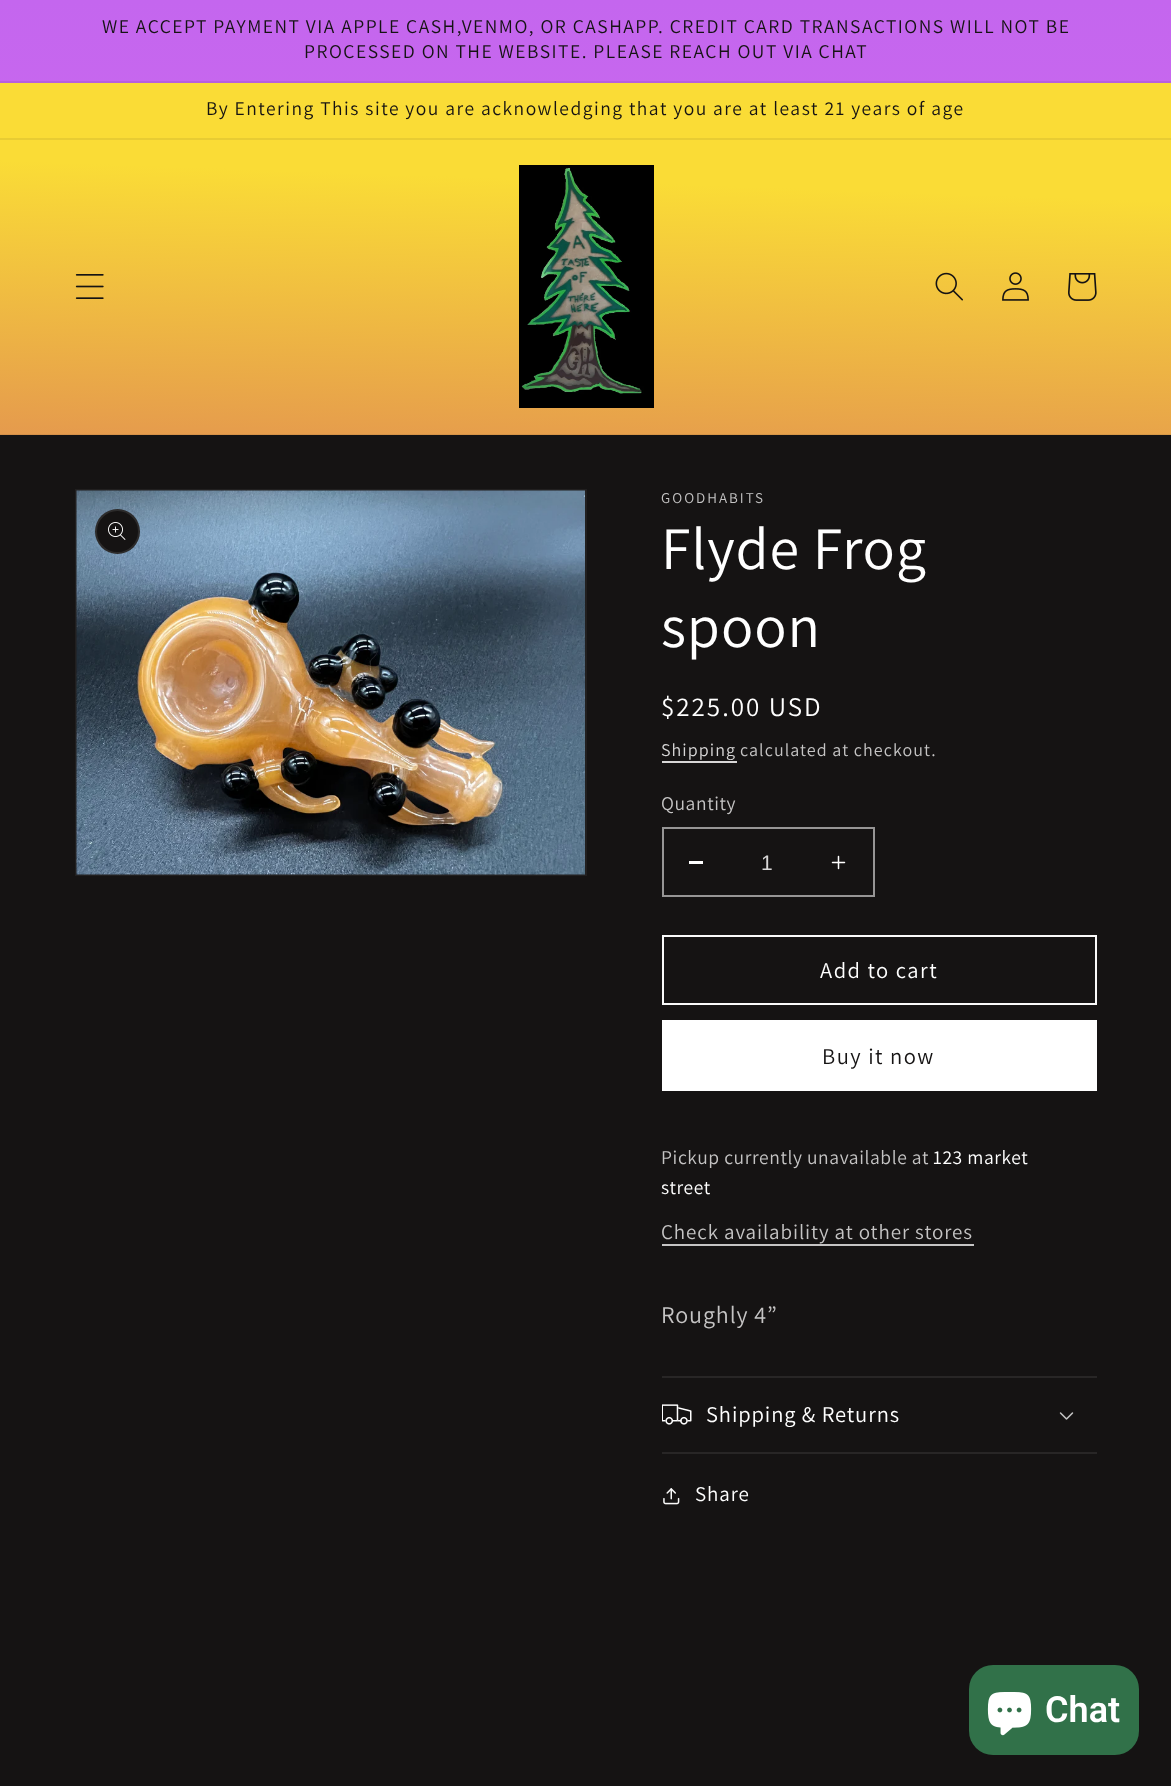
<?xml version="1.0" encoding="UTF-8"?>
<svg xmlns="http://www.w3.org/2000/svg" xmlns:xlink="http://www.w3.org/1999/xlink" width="1171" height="1786">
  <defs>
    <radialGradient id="g1" gradientUnits="userSpaceOnUse" cx="0" cy="0" r="1" gradientTransform="matrix(828 0 0 1263 586 893)"><stop offset="1" stop-color="#151313" /><stop offset="1" stop-color="#a8fffb" /></radialGradient>
    <radialGradient id="g2" gradientUnits="userSpaceOnUse" cx="0" cy="0" r="1" gradientTransform="matrix(828 0 0 1263 586 893)"><stop offset="1" stop-color="#151313" /><stop offset="1" stop-color="#9cece8" /></radialGradient>
    <linearGradient id="g3" gradientUnits="userSpaceOnUse" x1="586" y1="0" x2="586" y2="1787"><stop offset="0" stop-color="#c466ee" /><stop offset="0.46" stop-color="#dc6dee" /><stop offset="0.51" stop-color="#ee73eb" /><stop offset="0.77" stop-color="#ee79d8" /><stop offset="1" stop-color="#52daec" /></linearGradient>
    <linearGradient id="g4" gradientUnits="userSpaceOnUse" x1="618" y1="-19" x2="554" y2="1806"><stop offset="0.11" stop-color="#fadc36" /><stop offset="0.46" stop-color="#c9436c" /><stop offset="0.53" stop-color="#f7fa40" /><stop offset="0.87" stop-color="#fadc36" /></linearGradient>
    <linearGradient id="g5" gradientUnits="userSpaceOnUse" x1="618" y1="-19" x2="554" y2="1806"><stop offset="0.11" stop-color="#e8cc33" /><stop offset="0.46" stop-color="#bb3f65" /><stop offset="0.53" stop-color="#e5e83c" /><stop offset="0.87" stop-color="#e8cc33" /></linearGradient>
  </defs>
  <rect width="100%" height="100%" fill="#ffffff" />
  <rect y="436" width="1171" height="1350" fill="url(#g1)" />
  <rect y="435" width="1171" height="1" fill="url(#g2)" />
  <rect width="1171" height="81" fill="url(#g3)" />
  <rect y="81" width="1171" height="2" fill="#b860dc" />
  <rect y="83" width="1171" height="55" fill="url(#g4)" />
  <rect y="138" width="1171" height="2" fill="#e8cc33" />
  <rect y="140" width="1171" height="294" fill="url(#g4)" />
  <rect y="434" width="1171" height="1" fill="url(#g5)" />
  <image x="75" y="274" width="29" height="25" xlink:href="image1.png" />
  <image x="519" y="165" width="135" height="243" xlink:href="image2.png" />
  <image x="935" y="272" width="28" height="29" xlink:href="image3.png" />
  <image x="1002" y="272" width="27" height="29" xlink:href="image4.png" />
  <image x="1068" y="273" width="29" height="28" xlink:href="image5.png" />
  <rect x="76" y="490" width="510" height="385" fill="none" stroke="#211f1f" stroke-width="2" />
  <image x="76" y="490" width="509" height="385" xlink:href="image6.png" />
  <circle cx="117.5" cy="531.5" r="22.5" fill="#151313" />
  <circle cx="117.5" cy="531.5" r="21.5" fill="none" stroke="#ffffff" stroke-opacity="0.1" stroke-width="2" />
  <image x="108" y="522" width="18" height="18" xlink:href="image7.png" />
  <rect x="662" y="761" width="75" height="2" fill="#d8d7d7" />
  <rect x="689" y="861" width="14" height="3" fill="#ffffff" />
  <image x="831" y="855" width="15" height="15" xlink:href="image8.png" />
  <rect x="663" y="828" width="211" height="68" fill="none" stroke="#969595" stroke-width="2" />
  <rect x="663" y="936" width="433" height="68" fill="none" stroke="#fafafa" stroke-width="2" />
  <rect x="662" y="1020" width="435" height="71" fill="#ffffff" />
  <rect x="662" y="1244" width="312" height="2" fill="#c5c4c4" />
  <rect x="662" y="1376" width="435" height="2" fill="#282626" />
  <rect x="662" y="1452" width="435" height="2" fill="#282626" />
  <image x="662" y="1404" width="30" height="21" xlink:href="image9.png" />
  <image x="1059" y="1412" width="15" height="8" xlink:href="image10.png" />
  <image x="663" y="1488" width="17" height="17" xlink:href="image11.png" />
  <rect x="969" y="1665" width="170" height="90" rx="24" fill="#317149" />
  <image x="987" y="1692" width="45" height="44" xlink:href="image12.png" />
  <text x="102" y="33" style="font-family: Assistant; font-size: 19.5px; letter-spacing: 1.5px; fill: #151313">WE ACCEPT PAYMENT VIA APPLE CASH,VENMO, OR CASHAPP. CREDIT CARD TRANSACTIONS WILL NOT BE</text>
  <text x="304" y="58" style="font-family: Assistant; font-size: 19.5px; letter-spacing: 1.5px; fill: #151313">PROCESSED ON THE WEBSITE. PLEASE REACH OUT VIA CHAT</text>
  <text x="206" y="115" style="font-family: Assistant; font-size: 19.5px; letter-spacing: 1.5px; fill: #151313">By Entering This site you are acknowledging that you are at least 21 years of age</text>
  <text x="661" y="503" style="font-family: Assistant; font-size: 15px; letter-spacing: 2px; fill: #c5c4c4">GOODHABITS</text>
  <text x="661" y="569" style="font-family: Assistant; font-size: 60px; letter-spacing: 0.9px; fill: #ffffff">Flyde Frog</text>
  <text x="661" y="647" style="font-family: Assistant; font-size: 60px; letter-spacing: 0.9px; fill: #ffffff">spoon</text>
  <text x="661" y="716" style="font-family: Assistant; font-size: 27px; letter-spacing: 2px; fill: #ffffff">$225.00 USD</text>
  <text x="661" y="756" style="font-family: Assistant; font-size: 18px; letter-spacing: 1.05px; fill: #d8d7d7">Shipping</text>
  <text x="740" y="756" style="font-family: Assistant; font-size: 18px; letter-spacing: 1.05px; fill: #c5c4c4">calculated at checkout.</text>
  <text x="661" y="810" style="font-family: Assistant; font-size: 19.5px; letter-spacing: 0.6px; fill: #c5c4c4">Quantity</text>
  <text x="761" y="870" style="font-family: Liberation Sans; font-size: 21px; fill: #d8d7d7">1</text>
  <text x="820" y="978" style="font-family: Assistant; font-size: 22.5px; letter-spacing: 1.5px; fill: #ffffff">Add to cart</text>
  <text x="822" y="1064" style="font-family: Assistant; font-size: 22.5px; letter-spacing: 1.5px; fill: #151313">Buy it now</text>
  <text x="661" y="1164" style="font-family: Assistant; font-size: 19.5px; letter-spacing: 0.6px; fill: #c5c4c4">Pickup currently unavailable at</text>
  <text x="933" y="1164" style="font-family: Assistant; font-size: 19.5px; letter-spacing: 0.6px; fill: #ffffff">123 market</text>
  <text x="661" y="1194" style="font-family: Assistant; font-size: 19.5px; letter-spacing: 0.6px; fill: #ffffff">street</text>
  <text x="661" y="1239" style="font-family: Assistant; font-size: 21px; letter-spacing: 0.9px; fill: #c5c4c4">Check availability at other stores</text>
  <text x="661" y="1323" style="font-family: Assistant; font-size: 24px; letter-spacing: 0.9px; fill: #c5c4c4">Roughly 4”</text>
  <text x="706" y="1422" style="font-family: Assistant; font-size: 22.5px; letter-spacing: 0.9px; fill: #ffffff">Shipping &amp; Returns</text>
  <text x="695" y="1501" style="font-family: Assistant; font-size: 21px; letter-spacing: 0.9px; fill: #ffffff">Share</text>
  <text x="1045" y="1722" style="font-family: Roboto; font-size: 36px; font-weight: 600; fill: #ffffff">Chat</text>
</svg>
